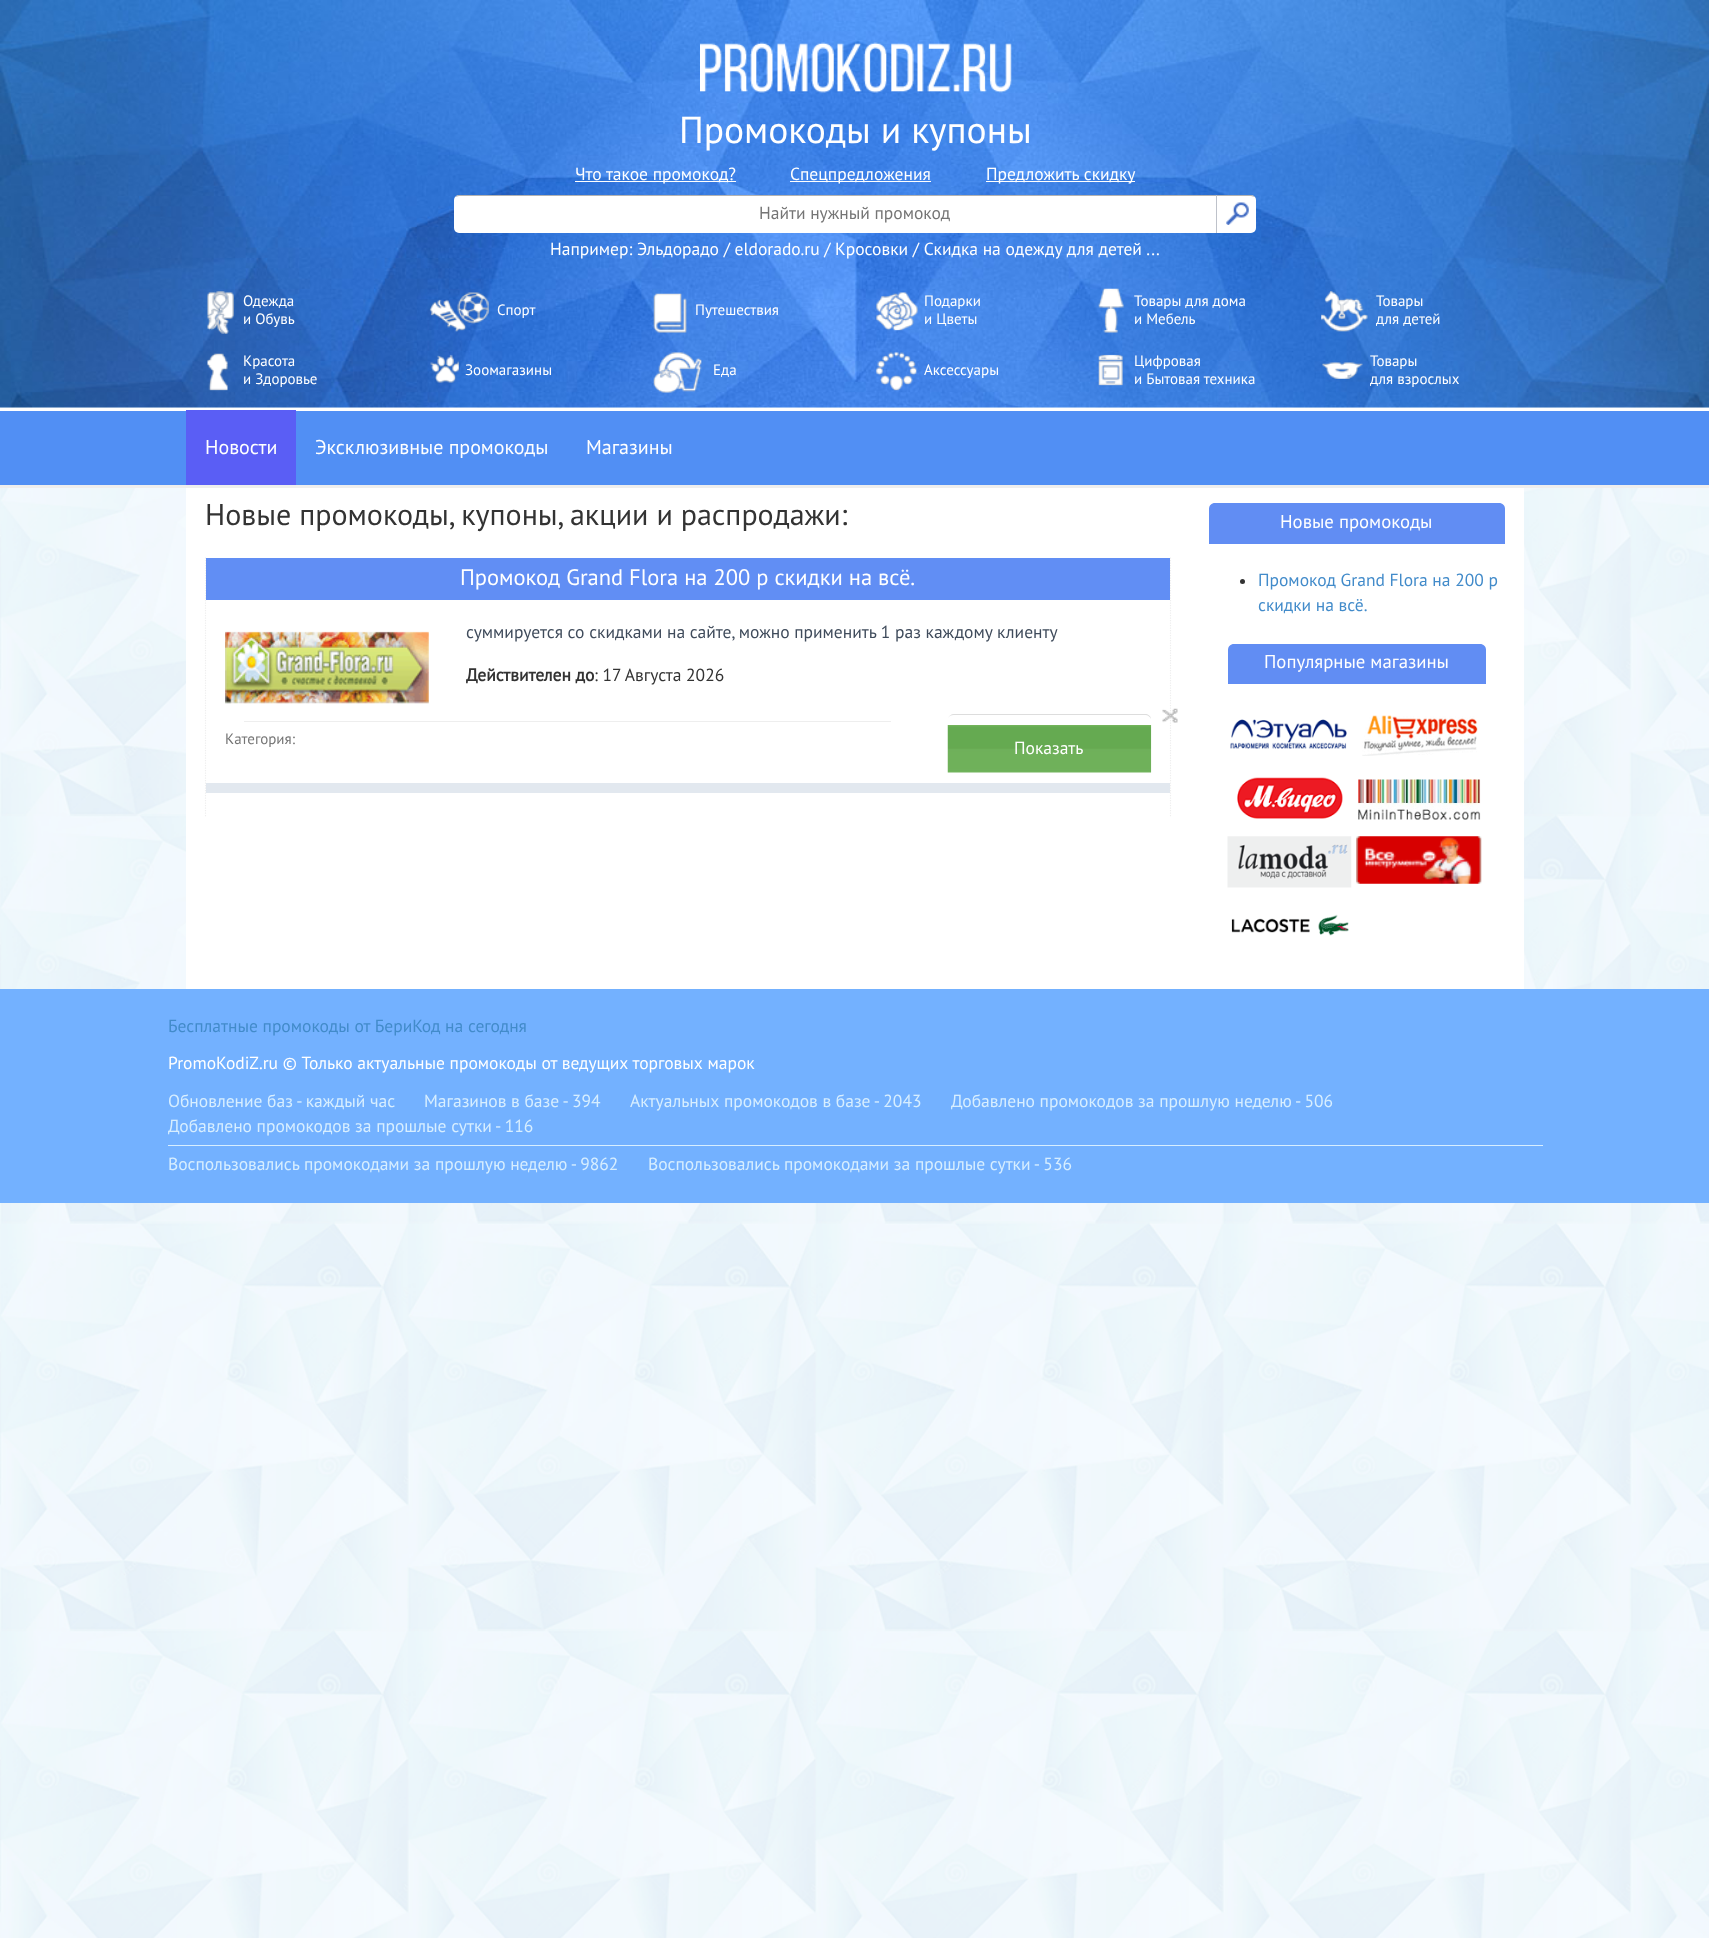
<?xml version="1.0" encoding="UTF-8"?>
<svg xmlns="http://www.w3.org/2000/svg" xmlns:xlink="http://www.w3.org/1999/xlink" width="1709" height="1938">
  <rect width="100%" height="100%" fill="#ffffff" />
  <image x="0" y="407" width="1709" height="1531" xlink:href="image1.png" />
  <image x="0" y="0" width="1709" height="408" xlink:href="image2.png" />
  <image x="700" y="42" width="312" height="51" xlink:href="image3.png" />
  <rect x="575" y="181" width="161" height="1" fill="#ffffff" />
  <rect x="790" y="181" width="141" height="1" fill="#ffffff" />
  <rect x="986" y="181" width="149" height="1" fill="#ffffff" />
  <rect x="454" y="195" width="802" height="38" rx="5" fill="#ffffff" />
  <path d="M 459 196 h 792 l 4 1 c -1 -1 -2 -2 -4 -2 h -792 c -2 0 -3 1 -4 2 z" fill="#000000" fill-opacity="0.3" />
  <image x="1226" y="202" width="23" height="23" xlink:href="image4.png" />
  <rect x="1216" y="195" width="1" height="38" fill="#bec2ca" />
  <image x="207" y="291" width="27" height="43" xlink:href="image5.png" />
  <image x="429" y="292" width="60" height="40" xlink:href="image6.png" />
  <image x="653" y="293" width="34" height="40" xlink:href="image7.png" />
  <image x="876" y="292" width="42" height="39" xlink:href="image8.png" />
  <image x="1098" y="288" width="26" height="45" xlink:href="image9.png" />
  <image x="1321" y="291" width="47" height="41" xlink:href="image10.png" />
  <image x="207" y="353" width="21" height="38" xlink:href="image11.png" />
  <image x="430" y="354" width="29" height="29" xlink:href="image12.png" />
  <image x="653" y="352" width="49" height="41" xlink:href="image13.png" />
  <image x="876" y="352" width="41" height="39" xlink:href="image14.png" />
  <image x="1098" y="354" width="25" height="32" xlink:href="image15.png" />
  <image x="1322" y="362" width="41" height="17" xlink:href="image16.png" />
  <rect y="411" width="1709" height="74" fill="#518ff4" />
  <rect y="408" width="1709" height="3" fill="#ffffff" />
  <rect y="485" width="1709" height="3" fill="#eeeeee" />
  <rect x="186" y="410" width="110" height="75" fill="#5a5ef5" />
  <rect x="186" y="488" width="1338" height="501" fill="#ffffff" />
  <path d="M 1170.5 557.5 v 260" fill="none" stroke="#eeeeee" stroke-width="1.2" stroke-dasharray="1.25 1.25" />
  <path d="M 205.5 557.5 v 260" fill="none" stroke="#eeeeee" stroke-width="1.2" stroke-dasharray="1.25 1.25" />
  <rect x="206" y="558" width="964" height="42" fill="#618ef4" />
  <image x="225" y="631" width="204" height="73" xlink:href="image17.png" />
  <rect x="206" y="783" width="964" height="10" fill="#e2e8ef" />
  <rect x="244" y="721" width="647" height="1" fill="#eeeeee" />
  <path d="M 954 714 c -3 0 -5 2 -6 4 c 1 -2 3 -3 6 -3 h 191 c 3 0 5 2 6 4 c 0 -3 -3 -5 -6 -5 z" fill="#dddddd" />
  <image x="947" y="725" width="205" height="48" xlink:href="image18.png" />
  <image x="1162" y="708" width="16" height="15" xlink:href="image19.png" />
  <path d="M 1215 503 h 284 c 3.5 0 6 2.5 6 6 v 35 h -296 v -35 c 0 -3.5 2.5 -6 6 -6 z" fill="#618df3" />
  <circle cx="1242.5" cy="581.5" r="2.5" fill="#333333" />
  <path d="M 1234 644 h 246 c 3.5 0 6 2.5 6 6 v 34 h -258 v -34 c 0 -3.5 2.5 -6 6 -6 z" fill="#618df3" />
  <image x="1230" y="719" width="117" height="30" xlink:href="image20.png" />
  <image x="1362" y="715" width="116" height="41" xlink:href="image21.png" />
  <image x="1237" y="777" width="106" height="42" xlink:href="image22.png" />
  <image x="1358" y="779" width="123" height="41" xlink:href="image23.png" />
  <image x="1227" y="836" width="125" height="52" xlink:href="image24.png" />
  <image x="1356" y="836" width="126" height="48" xlink:href="image25.png" />
  <image x="1231" y="914" width="118" height="22" xlink:href="image26.png" />
  <rect y="989" width="1709" height="214" fill="#73b1ff" />
  <rect x="168" y="1145" width="1375" height="1" fill="#d7eeff" />
  <text x="679" y="143" style="font-family: PT Sans; font-size: 37.5px; fill: #ffffff">Промокоды и купоны</text>
  <text x="575" y="180" style="font-family: PT Sans; font-size: 17.5px; fill: #ffffff">Что такое промокод?</text>
  <text x="790" y="180" style="font-family: PT Sans; font-size: 17.5px; fill: #ffffff">Спецпредложения</text>
  <text x="986" y="180" style="font-family: PT Sans; font-size: 17.5px; fill: #ffffff">Предложить скидку</text>
  <text x="759" y="219" style="font-family: PT Sans; font-size: 17.5px; fill: #757575">Найти нужный промокод</text>
  <text x="550" y="255" style="font-family: PT Sans; font-size: 17.5px; fill: #ffffff">Например: Эльдорадо / eldorado.ru / Кросовки / Скидка на одежду для детей ...</text>
  <text x="243" y="306" style="font-family: PT Sans; font-size: 15px; fill: #ffffff">Одежда</text>
  <text x="243" y="324" style="font-family: PT Sans; font-size: 15px; fill: #ffffff">и Обувь</text>
  <text x="497" y="315" style="font-family: PT Sans; font-size: 15px; fill: #ffffff">Спорт</text>
  <text x="695" y="315" style="font-family: PT Sans; font-size: 15px; fill: #ffffff">Путешествия</text>
  <text x="924" y="306" style="font-family: PT Sans; font-size: 15px; fill: #ffffff">Подарки</text>
  <text x="924" y="324" style="font-family: PT Sans; font-size: 15px; fill: #ffffff">и Цветы</text>
  <text x="1134" y="306" style="font-family: PT Sans; font-size: 15px; fill: #ffffff">Товары для дома</text>
  <text x="1134" y="324" style="font-family: PT Sans; font-size: 15px; fill: #ffffff">и Мебель</text>
  <text x="1376" y="306" style="font-family: PT Sans; font-size: 15px; fill: #ffffff">Товары</text>
  <text x="1376" y="324" style="font-family: PT Sans; font-size: 15px; fill: #ffffff">для детей</text>
  <text x="243" y="366" style="font-family: PT Sans; font-size: 15px; fill: #ffffff">Красота</text>
  <text x="243" y="384" style="font-family: PT Sans; font-size: 15px; fill: #ffffff">и Здоровье</text>
  <text x="465" y="375" style="font-family: PT Sans; font-size: 15px; fill: #ffffff">Зоомагазины</text>
  <text x="713" y="375" style="font-family: PT Sans; font-size: 15px; fill: #ffffff">Еда</text>
  <text x="924" y="375" style="font-family: PT Sans; font-size: 15px; fill: #ffffff">Аксессуары</text>
  <text x="1134" y="366" style="font-family: PT Sans; font-size: 15px; fill: #ffffff">Цифровая</text>
  <text x="1134" y="384" style="font-family: PT Sans; font-size: 15px; fill: #ffffff">и Бытовая техника</text>
  <text x="1370" y="366" style="font-family: PT Sans; font-size: 15px; fill: #ffffff">Товары</text>
  <text x="1370" y="384" style="font-family: PT Sans; font-size: 15px; fill: #ffffff">для взрослых</text>
  <text x="205" y="454" style="font-family: PT Sans; font-size: 20px; fill: #ffffff">Новости</text>
  <text x="315" y="454" style="font-family: PT Sans; font-size: 20px; fill: #ffffff">Эксклюзивные промокоды</text>
  <text x="586" y="454" style="font-family: PT Sans; font-size: 20px; fill: #ffffff">Магазины</text>
  <text x="205" y="525" style="font-family: PT Sans; font-size: 30px; fill: #333333">Новые промокоды, купоны, акции и распродажи:</text>
  <text x="460" y="585" style="font-family: PT Sans; font-size: 22.5px; fill: #ffffff">Промокод Grand Flora на 200 р скидки на всё.</text>
  <text x="466" y="638" style="font-family: PT Sans; font-size: 17.5px; fill: #3f4b5b">суммируется со скидками на сайте, можно применить 1 раз каждому клиенту</text>
  <text x="466" y="681" style="font-family: PT Sans; font-size: 17.5px; font-weight: bold; fill: #333333">Действителен до</text>
  <text x="594" y="681" style="font-family: PT Sans; font-size: 17.5px; fill: #333333">: 17 Августа 2026</text>
  <text x="225" y="744" style="font-family: PT Sans; font-size: 15px; fill: #757575">Категория:</text>
  <text x="1014" y="754" style="font-family: PT Sans; font-size: 17.5px; fill: #ffffff">Показать</text>
  <text x="1280" y="528" style="font-family: PT Sans; font-size: 18.75px; fill: #ffffff">Новые промокоды</text>
  <text x="1258" y="586" style="font-family: PT Sans; font-size: 17.5px; fill: #428bca">Промокод Grand Flora на 200 р</text>
  <text x="1258" y="611" style="font-family: PT Sans; font-size: 17.5px; fill: #428bca">скидки на всё.</text>
  <text x="1264" y="668" style="font-family: PT Sans; font-size: 18.75px; fill: #ffffff">Популярные магазины</text>
  <text x="168" y="1032" style="font-family: PT Sans; font-size: 17.5px; fill: #428bca">Бесплатные промокоды от БериКод на сегодня</text>
  <text x="168" y="1069" style="font-family: PT Sans; font-size: 17.5px; fill: #ffffff">PromoKodiZ.ru © Только актуальные промокоды от ведущих торговых марок</text>
  <text x="168" y="1107" style="font-family: PT Sans; font-size: 17.5px; fill: #d7eeff">Обновление баз - каждый час</text>
  <text x="424" y="1107" style="font-family: PT Sans; font-size: 17.5px; fill: #d7eeff">Магазинов в базе - 394</text>
  <text x="630" y="1107" style="font-family: PT Sans; font-size: 17.5px; fill: #d7eeff">Актуальных промокодов в базе - 2043</text>
  <text x="951" y="1107" style="font-family: PT Sans; font-size: 17.5px; fill: #d7eeff">Добавлено промокодов за прошлую неделю - 506</text>
  <text x="168" y="1132" style="font-family: PT Sans; font-size: 17.5px; fill: #d7eeff">Добавлено промокодов за прошлые сутки - 116</text>
  <text x="168" y="1170" style="font-family: PT Sans; font-size: 17.5px; fill: #d7eeff">Воспользовались промокодами за прошлую неделю - 9862</text>
  <text x="648" y="1170" style="font-family: PT Sans; font-size: 17.5px; fill: #d7eeff">Воспользовались промокодами за прошлые сутки - 536</text>
</svg>
